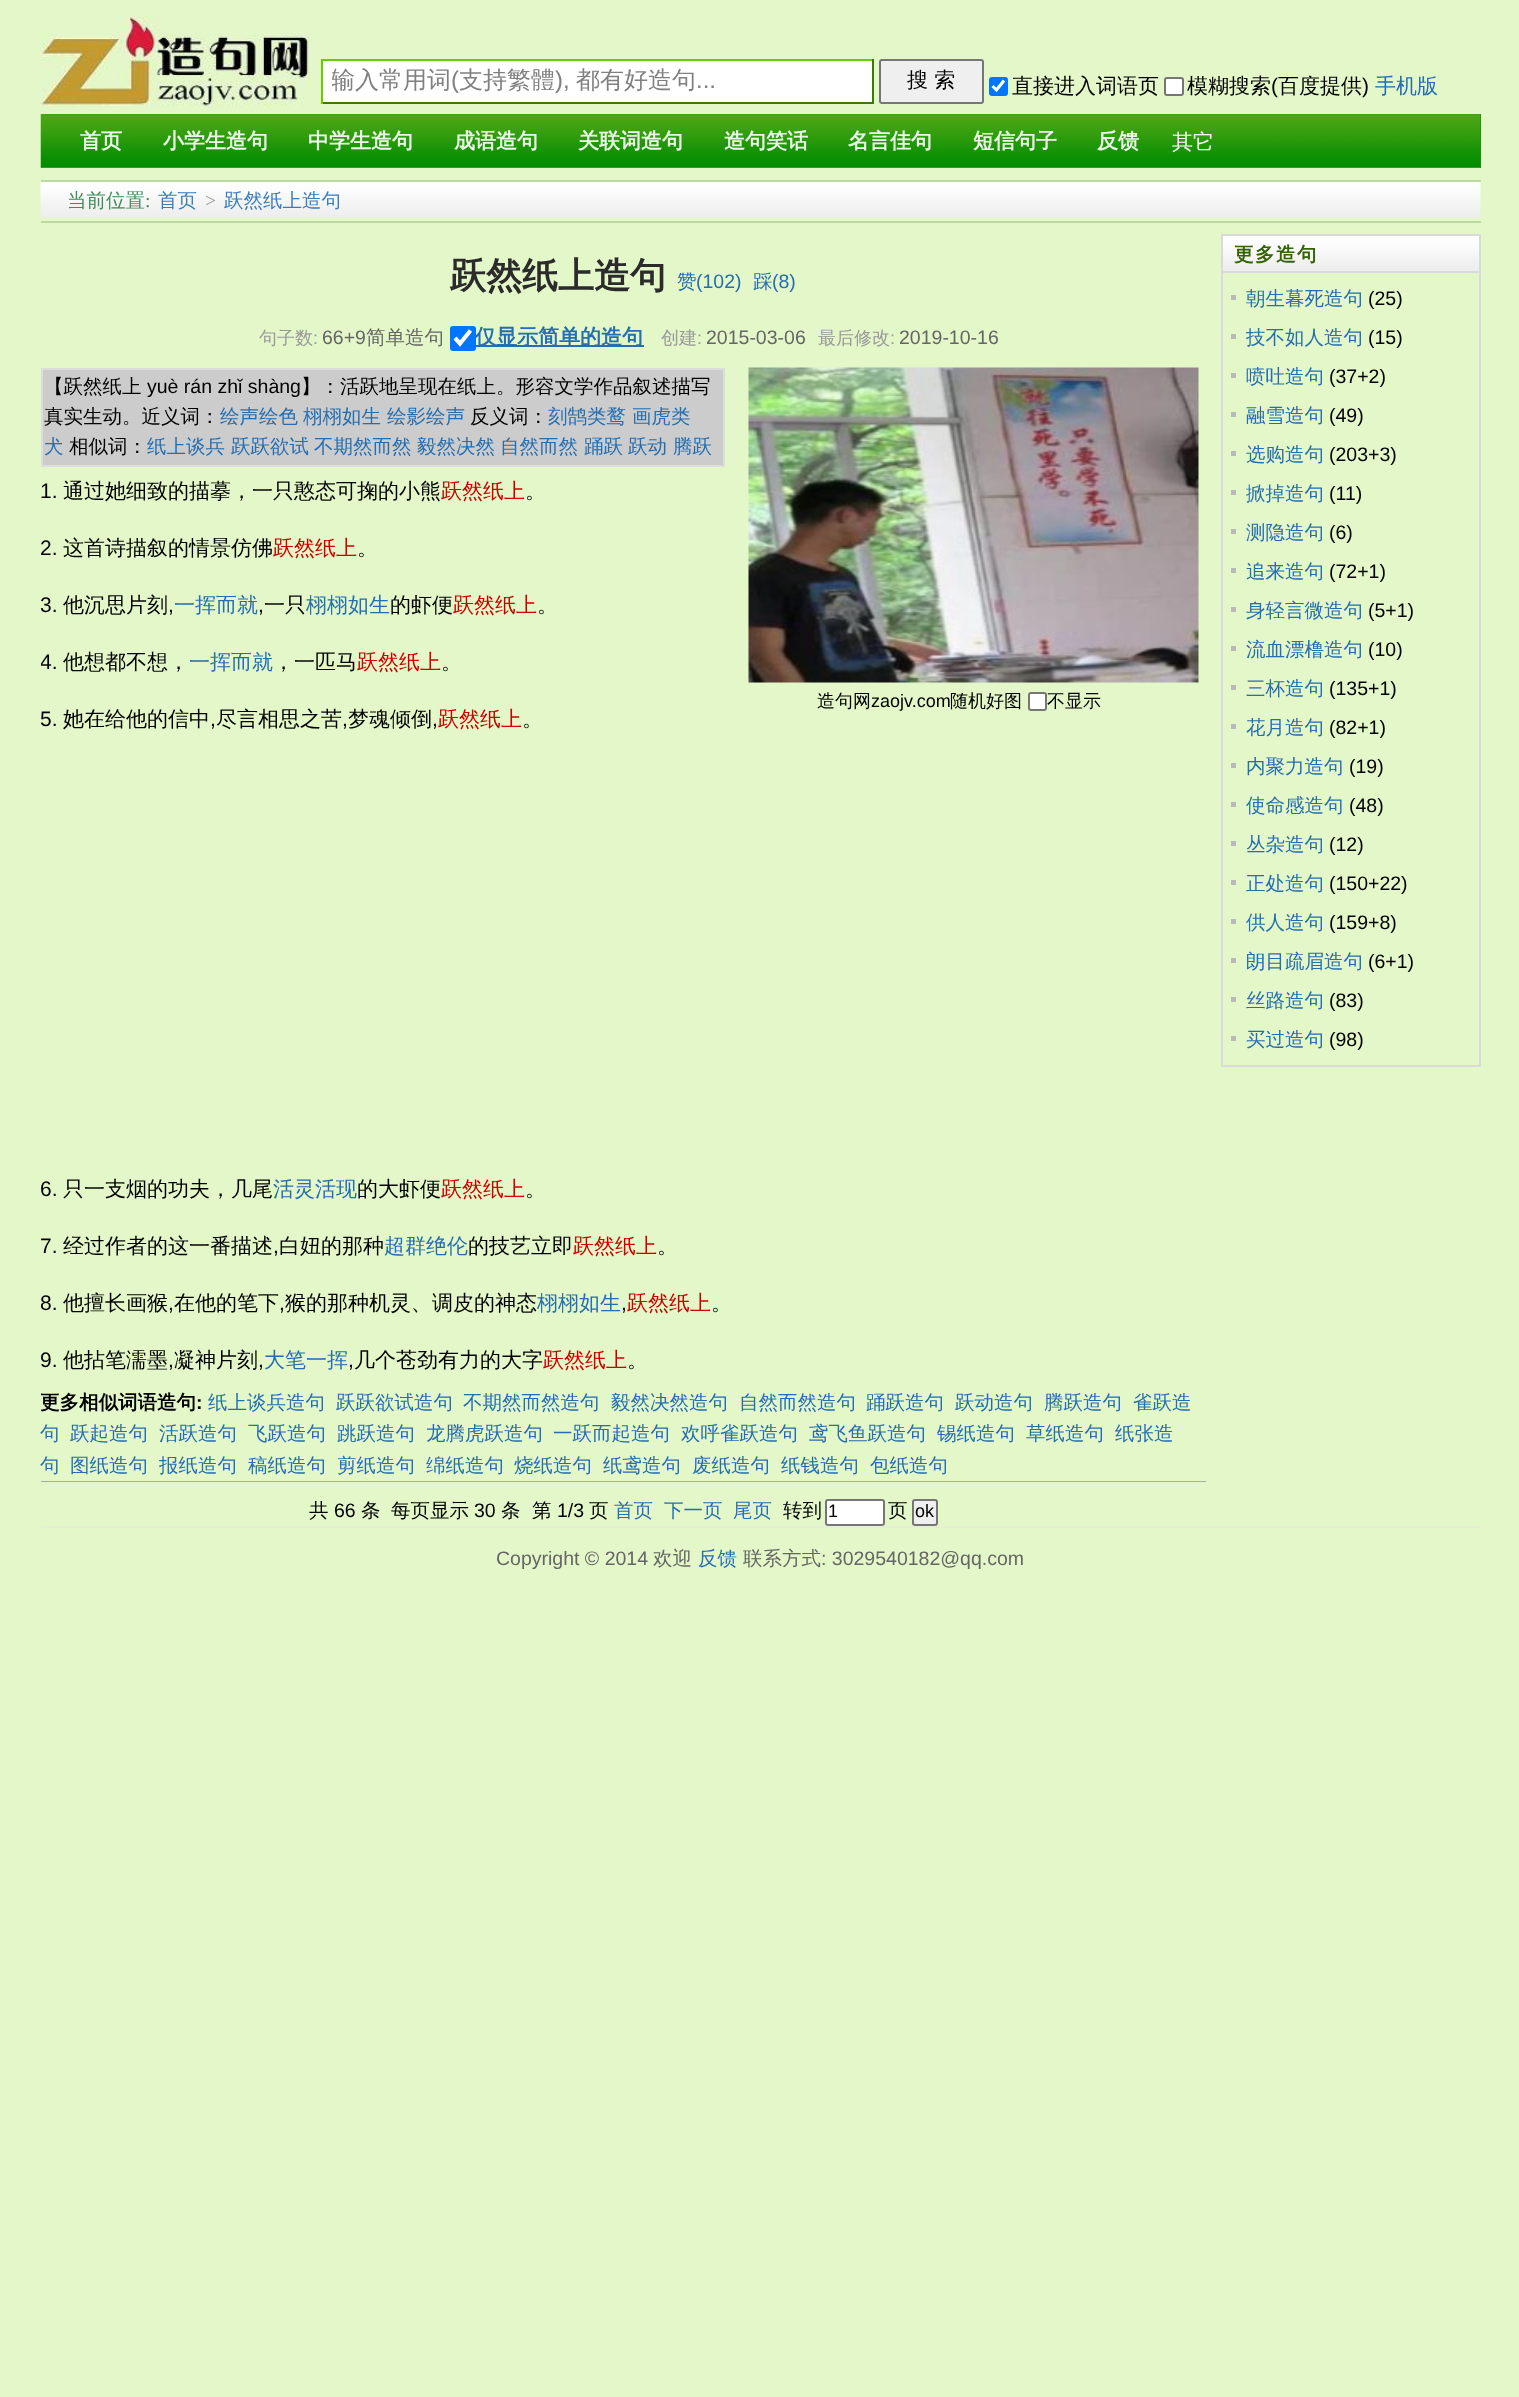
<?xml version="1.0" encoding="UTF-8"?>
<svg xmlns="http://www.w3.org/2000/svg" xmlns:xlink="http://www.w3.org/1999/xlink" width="1519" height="2397">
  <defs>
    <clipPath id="clip1"><rect x="332" y="66" width="540" height="32" /></clipPath>
    <clipPath id="clip2"><rect x="41" y="234" width="1165" height="1248" /></clipPath>
  </defs>
  <rect width="100%" height="100%" fill="#e3f7c8" />
  <image x="40" y="16" width="271" height="91" xlink:href="image1.png" />
  <rect x="323" y="61" width="549" height="41" fill="#ffffff" />
  <rect x="321" y="59" width="552" height="2" fill="#67cd01" />
  <rect x="872" y="59" width="2" height="45" fill="#3d7a01" />
  <rect x="321" y="102" width="552" height="2" fill="#3d7a01" />
  <rect x="321" y="59" width="2" height="45" fill="#67cd01" />
  <rect x="880" y="60" width="103" height="43" rx="2" fill="#efefef" stroke="#767676" stroke-width="2" />
  <rect x="989" y="77" width="19" height="19" rx="3" fill="#0075ff" />
  <path d="M 992.5 86 l 4 4 l 7.5 -9.5" fill="none" stroke="#ffffff" stroke-width="3.1" />
  <rect x="1165" y="78" width="18" height="17" rx="2" fill="#ffffff" stroke="#767676" stroke-width="2" />
  <rect x="41" y="114" width="1440" height="54" fill="#199507" />
  <image x="40" y="114" width="1441" height="54" xlink:href="image2.png" />
  <image x="40" y="181" width="1441" height="37" xlink:href="image3.png" />
  <rect x="41" y="180" width="1440" height="2" fill="#badaa1" />
  <rect x="41" y="221" width="1440" height="2" fill="#badaa1" />
  <rect x="450" y="326" width="26" height="25" rx="3" fill="#0075ff" />
  <path d="M 455 338 l 5 5.5 l 10.5 -13" fill="none" stroke="#ffffff" stroke-width="4.1" />
  <rect x="476" y="345" width="168" height="2" fill="#256eb1" />
  <rect x="41" y="1481" width="1165" height="1" fill="#aaaaaa" />
  <rect x="42" y="369" width="682" height="97" fill="#cccccc" stroke="#dcdddd" stroke-width="2" />
  <image x="748" y="367" width="451" height="316" xlink:href="image4.png" />
  <rect x="1029" y="693" width="17" height="17" rx="2" fill="#ffffff" stroke="#767676" stroke-width="2" />
  <rect x="826" y="1500" width="58" height="25" rx="2" fill="#ffffff" stroke="#767676" stroke-width="2" />
  <rect x="913" y="1500" width="24" height="25" rx="2" fill="#efefef" stroke="#767676" stroke-width="2" />
  <rect x="1221" y="1065" width="260" height="2" fill="#dadada" />
  <image x="1223" y="236" width="256" height="35" xlink:href="image5.png" />
  <rect x="1222" y="235" width="258" height="37" fill="none" stroke="#dadada" stroke-width="2" />
  <rect x="1479" y="273" width="2" height="792" fill="#dadada" />
  <rect x="1221" y="273" width="2" height="792" fill="#dadada" />
  <rect x="1231" y="295" width="5" height="5" fill="#bab9b9" />
  <rect x="1231" y="334" width="5" height="5" fill="#bab9b9" />
  <rect x="1231" y="373" width="5" height="5" fill="#bab9b9" />
  <rect x="1231" y="412" width="5" height="5" fill="#bab9b9" />
  <rect x="1231" y="451" width="5" height="5" fill="#bab9b9" />
  <rect x="1231" y="490" width="5" height="5" fill="#bab9b9" />
  <rect x="1231" y="529" width="5" height="5" fill="#bab9b9" />
  <rect x="1231" y="568" width="5" height="5" fill="#bab9b9" />
  <rect x="1231" y="607" width="5" height="5" fill="#bab9b9" />
  <rect x="1231" y="646" width="5" height="5" fill="#bab9b9" />
  <rect x="1231" y="685" width="5" height="5" fill="#bab9b9" />
  <rect x="1231" y="724" width="5" height="5" fill="#bab9b9" />
  <rect x="1231" y="763" width="5" height="5" fill="#bab9b9" />
  <rect x="1231" y="802" width="5" height="5" fill="#bab9b9" />
  <rect x="1231" y="841" width="5" height="5" fill="#bab9b9" />
  <rect x="1231" y="880" width="5" height="5" fill="#bab9b9" />
  <rect x="1231" y="919" width="5" height="5" fill="#bab9b9" />
  <rect x="1231" y="958" width="5" height="5" fill="#bab9b9" />
  <rect x="1231" y="997" width="5" height="5" fill="#bab9b9" />
  <rect x="1231" y="1036" width="5" height="5" fill="#bab9b9" />
  <rect x="41" y="1526" width="1440" height="2" fill="#e5efd6" />
  <g clip-path="url(#clip1)">
    <text x="331" y="88" style="font-family: WenQuanYi Zen Hei; font-size: 24px; font-weight: 500; fill: #808080">输入常用词</text>
  </g>
  <text x="451" y="88" style="font-family: Liberation Sans; font-size: 24px; fill: #808080">(</text>
  <text x="459" y="88" style="font-family: WenQuanYi Zen Hei; font-size: 24px; font-weight: 500; fill: #808080">支持繁體</text>
  <text x="555" y="88" style="font-family: Liberation Sans; font-size: 24px; fill: #808080">),</text>
  <text x="576" y="88" style="font-family: WenQuanYi Zen Hei; font-size: 24px; font-weight: 500; fill: #808080">都有好造句</text>
  <text x="696" y="88" style="font-family: Liberation Sans; font-size: 24px; fill: #808080">...</text>
  <text x="907" y="87" style="font-family: WenQuanYi Zen Hei; font-size: 21px; font-weight: 500; fill: #000000">搜 索</text>
  <text x="1012" y="93" style="font-family: WenQuanYi Zen Hei; font-size: 21px; font-weight: 500; fill: #000000">直接进入词语页</text>
  <text x="1187" y="93" style="font-family: WenQuanYi Zen Hei; font-size: 21px; font-weight: 500; fill: #000000">模糊搜索</text>
  <text x="1271" y="93" style="font-family: Liberation Sans; font-size: 21px; fill: #000000">(</text>
  <text x="1278" y="93" style="font-family: WenQuanYi Zen Hei; font-size: 21px; font-weight: 500; fill: #000000">百度提供</text>
  <text x="1362" y="93" style="font-family: Liberation Sans; font-size: 21px; fill: #000000">)</text>
  <text x="1375" y="93" style="font-family: WenQuanYi Zen Hei; font-size: 21px; font-weight: 500; fill: #256eb1">手机版</text>
  <text x="80" y="148" style="font-family: WenQuanYi Zen Hei; font-size: 21px; font-weight: bold; fill: #ebf5e9">首页</text>
  <text x="163" y="148" style="font-family: WenQuanYi Zen Hei; font-size: 21px; font-weight: bold; fill: #ebf5e9">小学生造句</text>
  <text x="308" y="148" style="font-family: WenQuanYi Zen Hei; font-size: 21px; font-weight: bold; fill: #ebf5e9">中学生造句</text>
  <text x="454" y="148" style="font-family: WenQuanYi Zen Hei; font-size: 21px; font-weight: bold; fill: #ebf5e9">成语造句</text>
  <text x="578" y="148" style="font-family: WenQuanYi Zen Hei; font-size: 21px; font-weight: bold; fill: #ebf5e9">关联词造句</text>
  <text x="724" y="148" style="font-family: WenQuanYi Zen Hei; font-size: 21px; font-weight: bold; fill: #ebf5e9">造句笑话</text>
  <text x="848" y="148" style="font-family: WenQuanYi Zen Hei; font-size: 21px; font-weight: bold; fill: #ebf5e9">名言佳句</text>
  <text x="973" y="148" style="font-family: WenQuanYi Zen Hei; font-size: 21px; font-weight: bold; fill: #ebf5e9">短信句子</text>
  <text x="1097" y="148" style="font-family: WenQuanYi Zen Hei; font-size: 21px; font-weight: bold; fill: #ebf5e9">反馈</text>
  <text x="1172" y="149" style="font-family: WenQuanYi Zen Hei; font-size: 21px; font-weight: 500; fill: #ffffff">其它</text>
  <text x="67" y="207" style="font-family: WenQuanYi Zen Hei; font-size: 19.5px; font-weight: 500; fill: #428c5b">当前位置</text>
  <text x="145" y="207" style="font-family: Liberation Serif; font-size: 19.5px; fill: #428c5b">:</text>
  <text x="158" y="207" style="font-family: WenQuanYi Zen Hei; font-size: 19.5px; font-weight: 500; fill: #397cbe">首页</text>
  <text x="205" y="207" style="font-family: Liberation Serif; font-size: 19.5px; fill: #999999">&gt;</text>
  <text x="224" y="207" style="font-family: WenQuanYi Zen Hei; font-size: 19.5px; font-weight: 500; fill: #397cbe">跃然纸上造句</text>
  <text x="450" y="288" style="font-family: WenQuanYi Zen Hei; font-size: 36px; font-weight: bold; fill: #2b2b2b">跃然纸上造句</text>
  <text x="677" y="288" style="font-family: WenQuanYi Zen Hei; font-size: 19.5px; font-weight: 500; fill: #256eb1">赞</text>
  <text x="696" y="288" style="font-family: Liberation Sans; font-size: 19.5px; fill: #256eb1">(102)</text>
  <text x="753" y="288" style="font-family: WenQuanYi Zen Hei; font-size: 19.5px; font-weight: 500; fill: #256eb1">踩</text>
  <text x="772" y="288" style="font-family: Liberation Sans; font-size: 19.5px; fill: #256eb1">(8)</text>
  <text x="259" y="344" style="font-family: WenQuanYi Zen Hei; font-size: 18px; font-weight: 500; fill: #999999">句子数</text>
  <text x="313" y="344" style="font-family: Liberation Sans; font-size: 18px; fill: #999999">:</text>
  <text x="322" y="344" style="font-family: Liberation Sans; font-size: 19.5px; fill: #666666">66+9</text>
  <text x="366" y="344" style="font-family: WenQuanYi Zen Hei; font-size: 19.5px; font-weight: 500; fill: #666666">简单造句</text>
  <text x="475" y="344" style="font-family: WenQuanYi Zen Hei; font-size: 21px; font-weight: bold; fill: #256eb1">仅显示简单的造句</text>
  <text x="661" y="344" style="font-family: WenQuanYi Zen Hei; font-size: 18px; font-weight: 500; fill: #999999">创建</text>
  <text x="697" y="344" style="font-family: Liberation Sans; font-size: 18px; fill: #999999">:</text>
  <text x="706" y="344" style="font-family: Liberation Sans; font-size: 19.5px; fill: #666666">2015-03-06</text>
  <text x="818" y="344" style="font-family: WenQuanYi Zen Hei; font-size: 18px; font-weight: 500; fill: #999999">最后修改</text>
  <text x="890" y="344" style="font-family: Liberation Sans; font-size: 18px; fill: #999999">:</text>
  <text x="899" y="344" style="font-family: Liberation Sans; font-size: 19.5px; fill: #666666">2019-10-16</text>
  <text x="44" y="393" style="font-family: WenQuanYi Zen Hei; font-size: 19.5px; font-weight: 500; fill: #000000">【跃然纸上</text>
  <text x="147" y="393" style="font-family: Liberation Sans; font-size: 19.5px; fill: #000000">yuè rán zhǐ shàng</text>
  <text x="301" y="393" style="font-family: WenQuanYi Zen Hei; font-size: 19.5px; font-weight: 500; fill: #000000">】：活跃地呈现在纸上。形容文学作品叙述描写</text>
  <text x="44" y="423" style="font-family: WenQuanYi Zen Hei; font-size: 19.5px; font-weight: 500; fill: #000000">真实生动。近义词：</text>
  <text x="220" y="423" style="font-family: WenQuanYi Zen Hei; font-size: 19.5px; font-weight: 500; fill: #256eb1">绘声绘色</text>
  <text x="303" y="423" style="font-family: WenQuanYi Zen Hei; font-size: 19.5px; font-weight: 500; fill: #256eb1">栩栩如生</text>
  <text x="387" y="423" style="font-family: WenQuanYi Zen Hei; font-size: 19.5px; font-weight: 500; fill: #256eb1">绘影绘声</text>
  <text x="470" y="423" style="font-family: WenQuanYi Zen Hei; font-size: 19.5px; font-weight: 500; fill: #000000">反义词：</text>
  <text x="548" y="423" style="font-family: WenQuanYi Zen Hei; font-size: 19.5px; font-weight: 500; fill: #256eb1">刻鹄类鹜</text>
  <text x="632" y="423" style="font-family: WenQuanYi Zen Hei; font-size: 19.5px; font-weight: 500; fill: #256eb1">画虎类</text>
  <text x="44" y="453" style="font-family: WenQuanYi Zen Hei; font-size: 19.5px; font-weight: 500; fill: #256eb1">犬</text>
  <text x="69" y="453" style="font-family: WenQuanYi Zen Hei; font-size: 19.5px; font-weight: 500; fill: #000000">相似词：</text>
  <text x="147" y="453" style="font-family: WenQuanYi Zen Hei; font-size: 19.5px; font-weight: 500; fill: #256eb1">纸上谈兵</text>
  <text x="231" y="453" style="font-family: WenQuanYi Zen Hei; font-size: 19.5px; font-weight: 500; fill: #256eb1">跃跃欲试</text>
  <text x="314" y="453" style="font-family: WenQuanYi Zen Hei; font-size: 19.5px; font-weight: 500; fill: #256eb1">不期然而然</text>
  <text x="417" y="453" style="font-family: WenQuanYi Zen Hei; font-size: 19.5px; font-weight: 500; fill: #256eb1">毅然决然</text>
  <text x="500" y="453" style="font-family: WenQuanYi Zen Hei; font-size: 19.5px; font-weight: 500; fill: #256eb1">自然而然</text>
  <text x="584" y="453" style="font-family: WenQuanYi Zen Hei; font-size: 19.5px; font-weight: 500; fill: #256eb1">踊跃</text>
  <text x="628" y="453" style="font-family: WenQuanYi Zen Hei; font-size: 19.5px; font-weight: 500; fill: #256eb1">跃动</text>
  <text x="673" y="453" style="font-family: WenQuanYi Zen Hei; font-size: 19.5px; font-weight: 500; fill: #256eb1">腾跃</text>
  <text x="40" y="498" style="font-family: Liberation Sans; font-size: 21px; fill: #000000">1.</text>
  <text x="63" y="498" style="font-family: WenQuanYi Zen Hei; font-size: 21px; font-weight: 500; fill: #000000">通过她细致的描摹，一只憨态可掬的小熊</text>
  <text x="441" y="498" style="font-family: WenQuanYi Zen Hei; font-size: 21px; font-weight: 500; fill: #cc0000">跃然纸上</text>
  <text x="525" y="498" style="font-family: WenQuanYi Zen Hei; font-size: 21px; font-weight: 500; fill: #000000">。</text>
  <text x="40" y="555" style="font-family: Liberation Sans; font-size: 21px; fill: #000000">2.</text>
  <text x="63" y="555" style="font-family: WenQuanYi Zen Hei; font-size: 21px; font-weight: 500; fill: #000000">这首诗描叙的情景仿佛</text>
  <text x="273" y="555" style="font-family: WenQuanYi Zen Hei; font-size: 21px; font-weight: 500; fill: #cc0000">跃然纸上</text>
  <text x="357" y="555" style="font-family: WenQuanYi Zen Hei; font-size: 21px; font-weight: 500; fill: #000000">。</text>
  <g clip-path="url(#clip2)">
    <text x="40" y="612" style="font-family: Liberation Sans; font-size: 21px; fill: #000000">3.</text>
  </g>
  <text x="63" y="612" style="font-family: WenQuanYi Zen Hei; font-size: 21px; font-weight: 500; fill: #000000">他沉思片刻</text>
  <text x="168" y="612" style="font-family: Liberation Sans; font-size: 21px; fill: #000000">,</text>
  <text x="174" y="612" style="font-family: WenQuanYi Zen Hei; font-size: 21px; font-weight: 500; fill: #256eb1">一挥而就</text>
  <text x="258" y="612" style="font-family: Liberation Sans; font-size: 21px; fill: #000000">,</text>
  <text x="264" y="612" style="font-family: WenQuanYi Zen Hei; font-size: 21px; font-weight: 500; fill: #000000">一只</text>
  <text x="306" y="612" style="font-family: WenQuanYi Zen Hei; font-size: 21px; font-weight: 500; fill: #256eb1">栩栩如生</text>
  <text x="390" y="612" style="font-family: WenQuanYi Zen Hei; font-size: 21px; font-weight: 500; fill: #000000">的虾便</text>
  <text x="453" y="612" style="font-family: WenQuanYi Zen Hei; font-size: 21px; font-weight: 500; fill: #cc0000">跃然纸上</text>
  <text x="537" y="612" style="font-family: WenQuanYi Zen Hei; font-size: 21px; font-weight: 500; fill: #000000">。</text>
  <g clip-path="url(#clip2)">
    <text x="40" y="669" style="font-family: Liberation Sans; font-size: 21px; fill: #000000">4.</text>
  </g>
  <text x="63" y="669" style="font-family: WenQuanYi Zen Hei; font-size: 21px; font-weight: 500; fill: #000000">他想都不想，</text>
  <text x="189" y="669" style="font-family: WenQuanYi Zen Hei; font-size: 21px; font-weight: 500; fill: #256eb1">一挥而就</text>
  <text x="273" y="669" style="font-family: WenQuanYi Zen Hei; font-size: 21px; font-weight: 500; fill: #000000">，一匹马</text>
  <text x="357" y="669" style="font-family: WenQuanYi Zen Hei; font-size: 21px; font-weight: 500; fill: #cc0000">跃然纸上</text>
  <text x="441" y="669" style="font-family: WenQuanYi Zen Hei; font-size: 21px; font-weight: 500; fill: #000000">。</text>
  <text x="40" y="726" style="font-family: Liberation Sans; font-size: 21px; fill: #000000">5.</text>
  <text x="63" y="726" style="font-family: WenQuanYi Zen Hei; font-size: 21px; font-weight: 500; fill: #000000">她在给他的信中</text>
  <text x="210" y="726" style="font-family: Liberation Sans; font-size: 21px; fill: #000000">,</text>
  <text x="216" y="726" style="font-family: WenQuanYi Zen Hei; font-size: 21px; font-weight: 500; fill: #000000">尽言相思之苦</text>
  <text x="342" y="726" style="font-family: Liberation Sans; font-size: 21px; fill: #000000">,</text>
  <text x="348" y="726" style="font-family: WenQuanYi Zen Hei; font-size: 21px; font-weight: 500; fill: #000000">梦魂倾倒</text>
  <text x="432" y="726" style="font-family: Liberation Sans; font-size: 21px; fill: #000000">,</text>
  <text x="438" y="726" style="font-family: WenQuanYi Zen Hei; font-size: 21px; font-weight: 500; fill: #cc0000">跃然纸上</text>
  <text x="522" y="726" style="font-family: WenQuanYi Zen Hei; font-size: 21px; font-weight: 500; fill: #000000">。</text>
  <g clip-path="url(#clip2)">
    <text x="40" y="1196" style="font-family: Liberation Sans; font-size: 21px; fill: #000000">6.</text>
  </g>
  <text x="63" y="1196" style="font-family: WenQuanYi Zen Hei; font-size: 21px; font-weight: 500; fill: #000000">只一支烟的功夫，几尾</text>
  <text x="273" y="1196" style="font-family: WenQuanYi Zen Hei; font-size: 21px; font-weight: 500; fill: #256eb1">活灵活现</text>
  <text x="357" y="1196" style="font-family: WenQuanYi Zen Hei; font-size: 21px; font-weight: 500; fill: #000000">的大虾便</text>
  <text x="441" y="1196" style="font-family: WenQuanYi Zen Hei; font-size: 21px; font-weight: 500; fill: #cc0000">跃然纸上</text>
  <text x="525" y="1196" style="font-family: WenQuanYi Zen Hei; font-size: 21px; font-weight: 500; fill: #000000">。</text>
  <text x="40" y="1253" style="font-family: Liberation Sans; font-size: 21px; fill: #000000">7.</text>
  <text x="63" y="1253" style="font-family: WenQuanYi Zen Hei; font-size: 21px; font-weight: 500; fill: #000000">经过作者的这一番描述</text>
  <text x="273" y="1253" style="font-family: Liberation Sans; font-size: 21px; fill: #000000">,</text>
  <text x="279" y="1253" style="font-family: WenQuanYi Zen Hei; font-size: 21px; font-weight: 500; fill: #000000">白妞的那种</text>
  <text x="384" y="1253" style="font-family: WenQuanYi Zen Hei; font-size: 21px; font-weight: 500; fill: #256eb1">超群绝伦</text>
  <text x="468" y="1253" style="font-family: WenQuanYi Zen Hei; font-size: 21px; font-weight: 500; fill: #000000">的技艺立即</text>
  <text x="573" y="1253" style="font-family: WenQuanYi Zen Hei; font-size: 21px; font-weight: 500; fill: #cc0000">跃然纸上</text>
  <text x="657" y="1253" style="font-family: WenQuanYi Zen Hei; font-size: 21px; font-weight: 500; fill: #000000">。</text>
  <g clip-path="url(#clip2)">
    <text x="40" y="1310" style="font-family: Liberation Sans; font-size: 21px; fill: #000000">8.</text>
  </g>
  <text x="63" y="1310" style="font-family: WenQuanYi Zen Hei; font-size: 21px; font-weight: 500; fill: #000000">他擅长画猴</text>
  <text x="168" y="1310" style="font-family: Liberation Sans; font-size: 21px; fill: #000000">,</text>
  <text x="174" y="1310" style="font-family: WenQuanYi Zen Hei; font-size: 21px; font-weight: 500; fill: #000000">在他的笔下</text>
  <text x="279" y="1310" style="font-family: Liberation Sans; font-size: 21px; fill: #000000">,</text>
  <text x="285" y="1310" style="font-family: WenQuanYi Zen Hei; font-size: 21px; font-weight: 500; fill: #000000">猴的那种机灵、调皮的神态</text>
  <text x="537" y="1310" style="font-family: WenQuanYi Zen Hei; font-size: 21px; font-weight: 500; fill: #256eb1">栩栩如生</text>
  <text x="621" y="1310" style="font-family: Liberation Sans; font-size: 21px; fill: #000000">,</text>
  <text x="627" y="1310" style="font-family: WenQuanYi Zen Hei; font-size: 21px; font-weight: 500; fill: #cc0000">跃然纸上</text>
  <text x="711" y="1310" style="font-family: WenQuanYi Zen Hei; font-size: 21px; font-weight: 500; fill: #000000">。</text>
  <g clip-path="url(#clip2)">
    <text x="40" y="1367" style="font-family: Liberation Sans; font-size: 21px; fill: #000000">9.</text>
  </g>
  <text x="63" y="1367" style="font-family: WenQuanYi Zen Hei; font-size: 21px; font-weight: 500; fill: #000000">他拈笔濡墨</text>
  <text x="168" y="1367" style="font-family: Liberation Sans; font-size: 21px; fill: #000000">,</text>
  <text x="174" y="1367" style="font-family: WenQuanYi Zen Hei; font-size: 21px; font-weight: 500; fill: #000000">凝神片刻</text>
  <text x="258" y="1367" style="font-family: Liberation Sans; font-size: 21px; fill: #000000">,</text>
  <text x="264" y="1367" style="font-family: WenQuanYi Zen Hei; font-size: 21px; font-weight: 500; fill: #256eb1">大笔一挥</text>
  <text x="348" y="1367" style="font-family: Liberation Sans; font-size: 21px; fill: #000000">,</text>
  <text x="354" y="1367" style="font-family: WenQuanYi Zen Hei; font-size: 21px; font-weight: 500; fill: #000000">几个苍劲有力的大字</text>
  <text x="543" y="1367" style="font-family: WenQuanYi Zen Hei; font-size: 21px; font-weight: 500; fill: #cc0000">跃然纸上</text>
  <text x="627" y="1367" style="font-family: WenQuanYi Zen Hei; font-size: 21px; font-weight: 500; fill: #000000">。</text>
  <text x="817" y="707" style="font-family: WenQuanYi Zen Hei; font-size: 18px; font-weight: 500; fill: #000000">造句网</text>
  <text x="871" y="707" style="font-family: Liberation Sans; font-size: 18px; fill: #000000">zaojv.com</text>
  <text x="950" y="707" style="font-family: WenQuanYi Zen Hei; font-size: 18px; font-weight: 500; fill: #000000">随机好图</text>
  <text x="1047" y="707" style="font-family: WenQuanYi Zen Hei; font-size: 18px; font-weight: 500; fill: #000000">不显示</text>
  <g clip-path="url(#clip2)">
    <text x="40" y="1409" style="font-family: WenQuanYi Zen Hei; font-size: 19.5px; font-weight: bold; fill: #000000">更多相似词语造句</text>
  </g>
  <text x="196" y="1409" style="font-family: Liberation Sans; font-size: 19.5px; font-weight: bold; fill: #000000">:</text>
  <text x="208" y="1409" style="font-family: WenQuanYi Zen Hei; font-size: 19.5px; font-weight: 500; fill: #256eb1">纸上谈兵造句</text>
  <text x="336" y="1409" style="font-family: WenQuanYi Zen Hei; font-size: 19.5px; font-weight: 500; fill: #256eb1">跃跃欲试造句</text>
  <text x="463" y="1409" style="font-family: WenQuanYi Zen Hei; font-size: 19.5px; font-weight: 500; fill: #256eb1">不期然而然造句</text>
  <text x="611" y="1409" style="font-family: WenQuanYi Zen Hei; font-size: 19.5px; font-weight: 500; fill: #256eb1">毅然决然造句</text>
  <text x="739" y="1409" style="font-family: WenQuanYi Zen Hei; font-size: 19.5px; font-weight: 500; fill: #256eb1">自然而然造句</text>
  <text x="866" y="1409" style="font-family: WenQuanYi Zen Hei; font-size: 19.5px; font-weight: 500; fill: #256eb1">踊跃造句</text>
  <text x="955" y="1409" style="font-family: WenQuanYi Zen Hei; font-size: 19.5px; font-weight: 500; fill: #256eb1">跃动造句</text>
  <text x="1044" y="1409" style="font-family: WenQuanYi Zen Hei; font-size: 19.5px; font-weight: 500; fill: #256eb1">腾跃造句</text>
  <text x="1133" y="1409" style="font-family: WenQuanYi Zen Hei; font-size: 19.5px; font-weight: 500; fill: #256eb1">雀跃造</text>
  <text x="40" y="1440" style="font-family: WenQuanYi Zen Hei; font-size: 19.5px; font-weight: 500; fill: #256eb1">句</text>
  <text x="70" y="1440" style="font-family: WenQuanYi Zen Hei; font-size: 19.5px; font-weight: 500; fill: #256eb1">跃起造句</text>
  <text x="159" y="1440" style="font-family: WenQuanYi Zen Hei; font-size: 19.5px; font-weight: 500; fill: #256eb1">活跃造句</text>
  <text x="248" y="1440" style="font-family: WenQuanYi Zen Hei; font-size: 19.5px; font-weight: 500; fill: #256eb1">飞跃造句</text>
  <text x="337" y="1440" style="font-family: WenQuanYi Zen Hei; font-size: 19.5px; font-weight: 500; fill: #256eb1">跳跃造句</text>
  <text x="426" y="1440" style="font-family: WenQuanYi Zen Hei; font-size: 19.5px; font-weight: 500; fill: #256eb1">龙腾虎跃造句</text>
  <text x="553" y="1440" style="font-family: WenQuanYi Zen Hei; font-size: 19.5px; font-weight: 500; fill: #256eb1">一跃而起造句</text>
  <text x="681" y="1440" style="font-family: WenQuanYi Zen Hei; font-size: 19.5px; font-weight: 500; fill: #256eb1">欢呼雀跃造句</text>
  <text x="809" y="1440" style="font-family: WenQuanYi Zen Hei; font-size: 19.5px; font-weight: 500; fill: #256eb1">鸢飞鱼跃造句</text>
  <text x="937" y="1440" style="font-family: WenQuanYi Zen Hei; font-size: 19.5px; font-weight: 500; fill: #256eb1">锡纸造句</text>
  <text x="1026" y="1440" style="font-family: WenQuanYi Zen Hei; font-size: 19.5px; font-weight: 500; fill: #256eb1">草纸造句</text>
  <text x="1115" y="1440" style="font-family: WenQuanYi Zen Hei; font-size: 19.5px; font-weight: 500; fill: #256eb1">纸张造</text>
  <text x="40" y="1472" style="font-family: WenQuanYi Zen Hei; font-size: 19.5px; font-weight: 500; fill: #256eb1">句</text>
  <text x="70" y="1472" style="font-family: WenQuanYi Zen Hei; font-size: 19.5px; font-weight: 500; fill: #256eb1">图纸造句</text>
  <text x="159" y="1472" style="font-family: WenQuanYi Zen Hei; font-size: 19.5px; font-weight: 500; fill: #256eb1">报纸造句</text>
  <text x="248" y="1472" style="font-family: WenQuanYi Zen Hei; font-size: 19.5px; font-weight: 500; fill: #256eb1">稿纸造句</text>
  <text x="337" y="1472" style="font-family: WenQuanYi Zen Hei; font-size: 19.5px; font-weight: 500; fill: #256eb1">剪纸造句</text>
  <text x="426" y="1472" style="font-family: WenQuanYi Zen Hei; font-size: 19.5px; font-weight: 500; fill: #256eb1">绵纸造句</text>
  <text x="514" y="1472" style="font-family: WenQuanYi Zen Hei; font-size: 19.5px; font-weight: 500; fill: #256eb1">烧纸造句</text>
  <text x="603" y="1472" style="font-family: WenQuanYi Zen Hei; font-size: 19.5px; font-weight: 500; fill: #256eb1">纸鸢造句</text>
  <text x="692" y="1472" style="font-family: WenQuanYi Zen Hei; font-size: 19.5px; font-weight: 500; fill: #256eb1">废纸造句</text>
  <text x="781" y="1472" style="font-family: WenQuanYi Zen Hei; font-size: 19.5px; font-weight: 500; fill: #256eb1">纸钱造句</text>
  <text x="870" y="1472" style="font-family: WenQuanYi Zen Hei; font-size: 19.5px; font-weight: 500; fill: #256eb1">包纸造句</text>
  <text x="309" y="1517" style="font-family: WenQuanYi Zen Hei; font-size: 19.5px; font-weight: 500; fill: #000000">共</text>
  <text x="334" y="1517" style="font-family: Liberation Sans; font-size: 19.5px; fill: #000000">66</text>
  <text x="361" y="1517" style="font-family: WenQuanYi Zen Hei; font-size: 19.5px; font-weight: 500; fill: #000000">条</text>
  <text x="391" y="1517" style="font-family: WenQuanYi Zen Hei; font-size: 19.5px; font-weight: 500; fill: #000000">每页显示</text>
  <text x="474" y="1517" style="font-family: Liberation Sans; font-size: 19.5px; fill: #000000">30</text>
  <text x="501" y="1517" style="font-family: WenQuanYi Zen Hei; font-size: 19.5px; font-weight: 500; fill: #000000">条</text>
  <text x="532" y="1517" style="font-family: WenQuanYi Zen Hei; font-size: 19.5px; font-weight: 500; fill: #000000">第</text>
  <text x="557" y="1517" style="font-family: Liberation Sans; font-size: 19.5px; fill: #000000">1/3</text>
  <text x="589" y="1517" style="font-family: WenQuanYi Zen Hei; font-size: 19.5px; font-weight: 500; fill: #000000">页</text>
  <text x="614" y="1517" style="font-family: WenQuanYi Zen Hei; font-size: 19.5px; font-weight: 500; fill: #256eb1">首页</text>
  <text x="664" y="1517" style="font-family: WenQuanYi Zen Hei; font-size: 19.5px; font-weight: 500; fill: #256eb1">下一页</text>
  <text x="733" y="1517" style="font-family: WenQuanYi Zen Hei; font-size: 19.5px; font-weight: 500; fill: #256eb1">尾页</text>
  <text x="783" y="1517" style="font-family: WenQuanYi Zen Hei; font-size: 19.5px; font-weight: 500; fill: #000000">转到</text>
  <text x="828" y="1517" style="font-family: Liberation Sans; font-size: 18px; fill: #000000">1</text>
  <text x="888" y="1517" style="font-family: WenQuanYi Zen Hei; font-size: 19.5px; font-weight: 500; fill: #000000">页</text>
  <text x="915" y="1517" style="font-family: Liberation Sans; font-size: 18px; fill: #000000">ok</text>
  <text x="1234" y="261" style="font-family: WenQuanYi Zen Hei; font-size: 19.5px; font-weight: bold; letter-spacing: 1.5px; fill: #316301">更多造句</text>
  <text x="1246" y="305" style="font-family: WenQuanYi Zen Hei; font-size: 19.5px; font-weight: 500; fill: #256eb1">朝生暮死造句</text>
  <text x="1368" y="305" style="font-family: Liberation Sans; font-size: 19.5px; fill: #000000">(25)</text>
  <text x="1246" y="344" style="font-family: WenQuanYi Zen Hei; font-size: 19.5px; font-weight: 500; fill: #256eb1">技不如人造句</text>
  <text x="1368" y="344" style="font-family: Liberation Sans; font-size: 19.5px; fill: #000000">(15)</text>
  <text x="1246" y="383" style="font-family: WenQuanYi Zen Hei; font-size: 19.5px; font-weight: 500; fill: #256eb1">喷吐造句</text>
  <text x="1329" y="383" style="font-family: Liberation Sans; font-size: 19.5px; fill: #000000">(37+2)</text>
  <text x="1246" y="422" style="font-family: WenQuanYi Zen Hei; font-size: 19.5px; font-weight: 500; fill: #256eb1">融雪造句</text>
  <text x="1329" y="422" style="font-family: Liberation Sans; font-size: 19.5px; fill: #000000">(49)</text>
  <text x="1246" y="461" style="font-family: WenQuanYi Zen Hei; font-size: 19.5px; font-weight: 500; fill: #256eb1">选购造句</text>
  <text x="1329" y="461" style="font-family: Liberation Sans; font-size: 19.5px; fill: #000000">(203+3)</text>
  <text x="1246" y="500" style="font-family: WenQuanYi Zen Hei; font-size: 19.5px; font-weight: 500; fill: #256eb1">掀掉造句</text>
  <text x="1329" y="500" style="font-family: Liberation Sans; font-size: 19.5px; fill: #000000">(11)</text>
  <text x="1246" y="539" style="font-family: WenQuanYi Zen Hei; font-size: 19.5px; font-weight: 500; fill: #256eb1">测隐造句</text>
  <text x="1329" y="539" style="font-family: Liberation Sans; font-size: 19.5px; fill: #000000">(6)</text>
  <text x="1246" y="578" style="font-family: WenQuanYi Zen Hei; font-size: 19.5px; font-weight: 500; fill: #256eb1">追来造句</text>
  <text x="1329" y="578" style="font-family: Liberation Sans; font-size: 19.5px; fill: #000000">(72+1)</text>
  <text x="1246" y="617" style="font-family: WenQuanYi Zen Hei; font-size: 19.5px; font-weight: 500; fill: #256eb1">身轻言微造句</text>
  <text x="1368" y="617" style="font-family: Liberation Sans; font-size: 19.5px; fill: #000000">(5+1)</text>
  <text x="1246" y="656" style="font-family: WenQuanYi Zen Hei; font-size: 19.5px; font-weight: 500; fill: #256eb1">流血漂橹造句</text>
  <text x="1368" y="656" style="font-family: Liberation Sans; font-size: 19.5px; fill: #000000">(10)</text>
  <text x="1246" y="695" style="font-family: WenQuanYi Zen Hei; font-size: 19.5px; font-weight: 500; fill: #256eb1">三杯造句</text>
  <text x="1329" y="695" style="font-family: Liberation Sans; font-size: 19.5px; fill: #000000">(135+1)</text>
  <text x="1246" y="734" style="font-family: WenQuanYi Zen Hei; font-size: 19.5px; font-weight: 500; fill: #256eb1">花月造句</text>
  <text x="1329" y="734" style="font-family: Liberation Sans; font-size: 19.5px; fill: #000000">(82+1)</text>
  <text x="1246" y="773" style="font-family: WenQuanYi Zen Hei; font-size: 19.5px; font-weight: 500; fill: #256eb1">内聚力造句</text>
  <text x="1349" y="773" style="font-family: Liberation Sans; font-size: 19.5px; fill: #000000">(19)</text>
  <text x="1246" y="812" style="font-family: WenQuanYi Zen Hei; font-size: 19.5px; font-weight: 500; fill: #256eb1">使命感造句</text>
  <text x="1349" y="812" style="font-family: Liberation Sans; font-size: 19.5px; fill: #000000">(48)</text>
  <text x="1246" y="851" style="font-family: WenQuanYi Zen Hei; font-size: 19.5px; font-weight: 500; fill: #256eb1">丛杂造句</text>
  <text x="1329" y="851" style="font-family: Liberation Sans; font-size: 19.5px; fill: #000000">(12)</text>
  <text x="1246" y="890" style="font-family: WenQuanYi Zen Hei; font-size: 19.5px; font-weight: 500; fill: #256eb1">正处造句</text>
  <text x="1329" y="890" style="font-family: Liberation Sans; font-size: 19.5px; fill: #000000">(150+22)</text>
  <text x="1246" y="929" style="font-family: WenQuanYi Zen Hei; font-size: 19.5px; font-weight: 500; fill: #256eb1">供人造句</text>
  <text x="1329" y="929" style="font-family: Liberation Sans; font-size: 19.5px; fill: #000000">(159+8)</text>
  <text x="1246" y="968" style="font-family: WenQuanYi Zen Hei; font-size: 19.5px; font-weight: 500; fill: #256eb1">朗目疏眉造句</text>
  <text x="1368" y="968" style="font-family: Liberation Sans; font-size: 19.5px; fill: #000000">(6+1)</text>
  <text x="1246" y="1007" style="font-family: WenQuanYi Zen Hei; font-size: 19.5px; font-weight: 500; fill: #256eb1">丝路造句</text>
  <text x="1329" y="1007" style="font-family: Liberation Sans; font-size: 19.5px; fill: #000000">(83)</text>
  <text x="1246" y="1046" style="font-family: WenQuanYi Zen Hei; font-size: 19.5px; font-weight: 500; fill: #256eb1">买过造句</text>
  <text x="1329" y="1046" style="font-family: Liberation Sans; font-size: 19.5px; fill: #000000">(98)</text>
  <text x="496" y="1565" style="font-family: Liberation Sans; font-size: 19.5px; fill: #666666">Copyright © 2014</text>
  <text x="653" y="1565" style="font-family: WenQuanYi Zen Hei; font-size: 19.5px; font-weight: 500; fill: #666666">欢迎</text>
  <text x="698" y="1565" style="font-family: WenQuanYi Zen Hei; font-size: 19.5px; font-weight: 500; fill: #256eb1">反馈</text>
  <text x="743" y="1565" style="font-family: WenQuanYi Zen Hei; font-size: 19.5px; font-weight: 500; fill: #666666">联系方式</text>
  <text x="821" y="1565" style="font-family: Liberation Sans; font-size: 19.5px; fill: #666666">: 3029540182@qq.com</text>
</svg>
